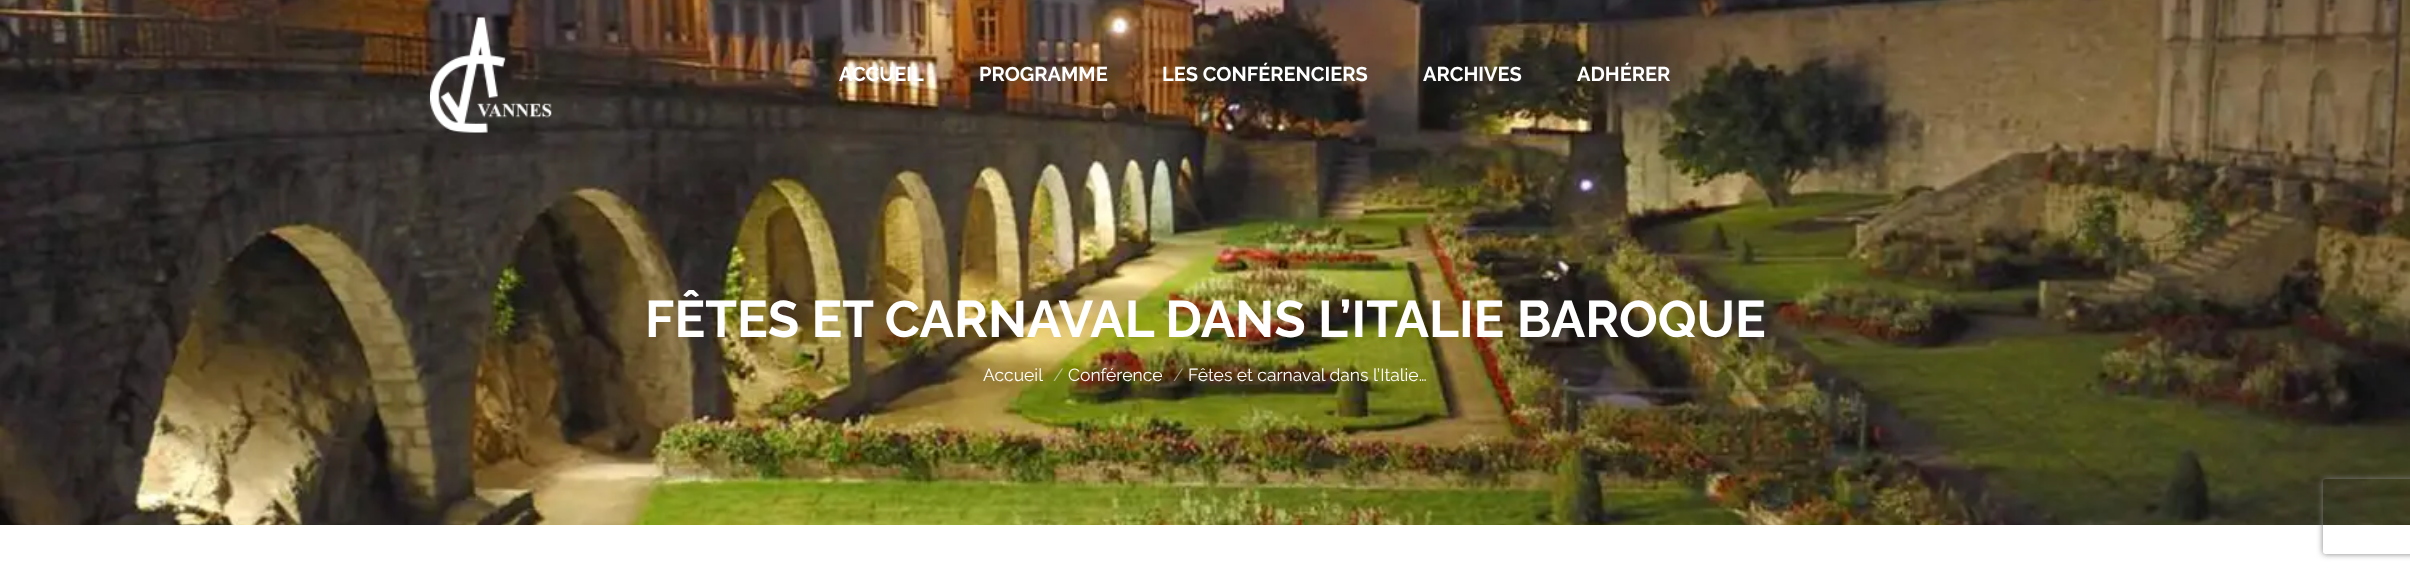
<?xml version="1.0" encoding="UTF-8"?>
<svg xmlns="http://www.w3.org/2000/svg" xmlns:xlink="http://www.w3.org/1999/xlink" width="2410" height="571">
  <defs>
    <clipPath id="clip1"><path d="M 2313 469 h 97 v 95 h -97 z m 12.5 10 h 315 c 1.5 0 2.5 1 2.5 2.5 v 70 c 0 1.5 -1 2.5 -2.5 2.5 h -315 c -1.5 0 -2.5 -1 -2.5 -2.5 v -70 c 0 -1.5 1 -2.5 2.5 -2.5 z" clip-rule="evenodd" /></clipPath>
  </defs>
  <rect width="100%" height="100%" fill="#ffffff" />
  <image x="0" y="0" width="2410" height="525" xlink:href="image2.png" />
  <image x="430" y="17" width="122" height="116" xlink:href="image1.png" />
  <g clip-path="url(#clip1)">
    <rect x="2323" y="479" width="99" height="75" rx="2.5" fill="#808080" filter="blur(3px)" />
  </g>
  <text x="839" y="81" style="font-family: Raleway; font-size: 20px; font-weight: bold; fill: #ffffff">ACCUEIL</text>
  <text x="979" y="81" style="font-family: Raleway; font-size: 20px; font-weight: bold; fill: #ffffff">PROGRAMME</text>
  <text x="1162" y="81" style="font-family: Raleway; font-size: 20px; font-weight: bold; fill: #ffffff">LES CONFÉRENCIERS</text>
  <text x="1423" y="81" style="font-family: Raleway; font-size: 20px; font-weight: bold; fill: #ffffff">ARCHIVES</text>
  <text x="1577" y="81" style="font-family: Raleway; font-size: 20px; font-weight: bold; fill: #ffffff">ADHÉRER</text>
  <text x="645" y="337" style="font-family: Raleway; font-size: 51.25px; font-weight: bold; fill: #ffffff">FÊTES ET CARNAVAL DANS L’ITALIE BAROQUE</text>
  <text x="983" y="381" style="font-family: Raleway; font-size: 17.5px; fill: #ffffff">Accueil</text>
  <text x="1053" y="381" style="font-family: Raleway; font-size: 17.5px; fill: #bbc188">/</text>
  <text x="1068" y="381" style="font-family: Raleway; font-size: 17.5px; fill: #ffffff">Conférence</text>
  <text x="1173" y="381" style="font-family: Raleway; font-size: 17.5px; fill: #a59b89">/</text>
  <text x="1188" y="381" style="font-family: Raleway; font-size: 17.5px; fill: #ffffff">Fêtes et carnaval dans l’Italie…</text>
</svg>
